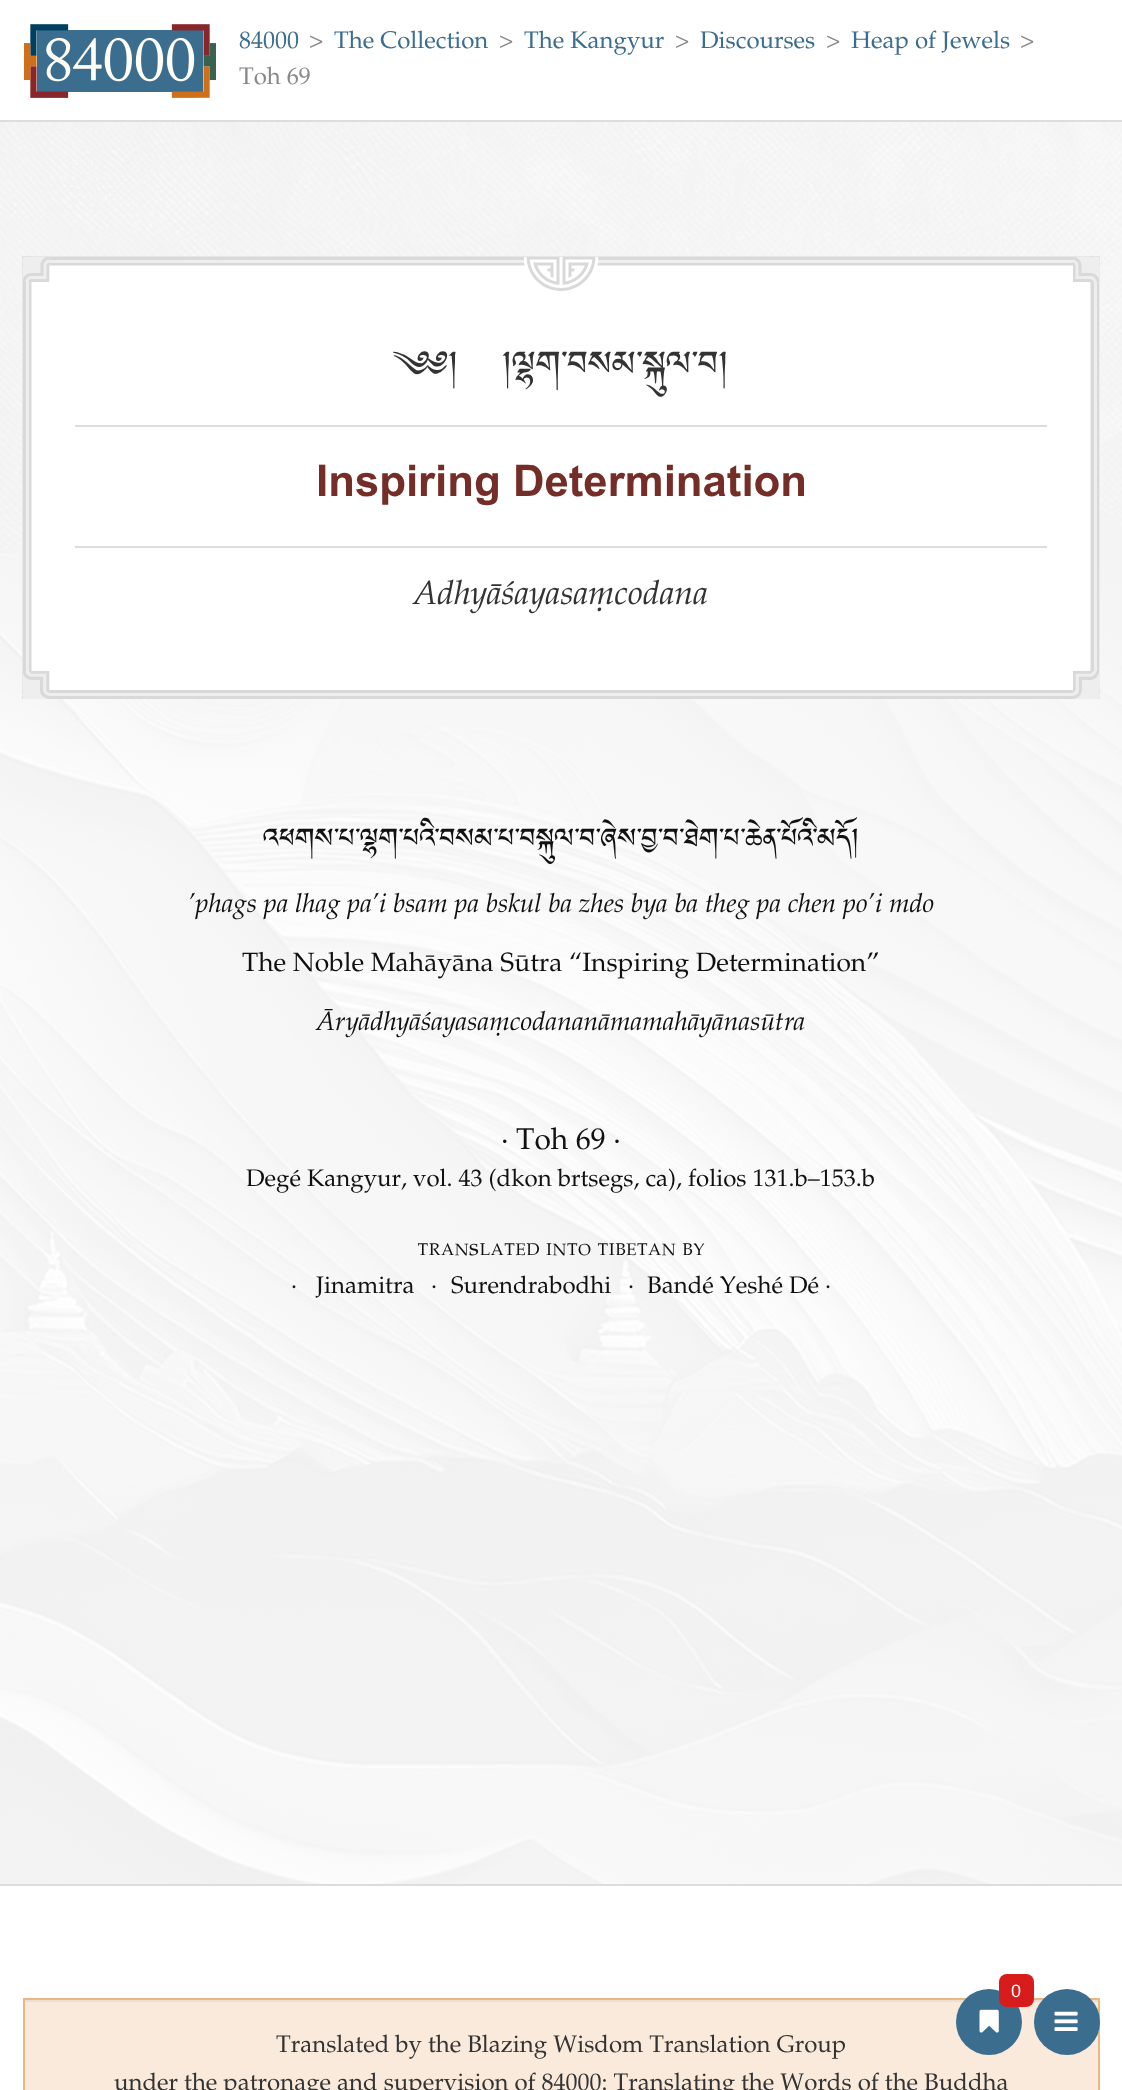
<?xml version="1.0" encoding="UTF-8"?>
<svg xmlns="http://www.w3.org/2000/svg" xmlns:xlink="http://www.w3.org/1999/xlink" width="1122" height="2090">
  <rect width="100%" height="100%" fill="#ffffff" />
  <image x="24" y="24" width="192" height="74" xlink:href="image1.png" />
  <image x="0" y="122" width="1122" height="1762" xlink:href="image2.png" />
  <rect y="120" width="1122" height="2" fill="#dddddd" />
  <rect x="31" y="257" width="1069" height="442" fill="#ffffff" />
  <image x="22" y="256" width="1078" height="443" xlink:href="image3.png" />
  <rect x="75" y="425" width="972" height="2" fill="#dddddd" />
  <rect x="75" y="546" width="972" height="2" fill="#dddddd" />
  <rect y="1884" width="1122" height="2" fill="#dddddd" />
  <rect x="25" y="2002" width="1073" height="88" fill="#f9eadb" />
  <rect x="24" y="2000" width="1074" height="2" fill="#edded0" />
  <rect x="24" y="1999" width="1075" height="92" fill="none" stroke="#ebb883" stroke-width="2" />
  <circle cx="989" cy="2022" r="33" fill="#3b6d8e" />
  <rect x="999" y="1974" width="35" height="33" rx="8" fill="#d81b1b" />
  <image x="979" y="2009" width="20" height="24" xlink:href="image4.png" />
  <circle cx="1067" cy="2022" r="33" fill="#3b6d8e" />
  <image x="1054" y="2011" width="24" height="20" xlink:href="image5.png" />
  <text x="239" y="48" style="font-family: 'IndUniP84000'; font-size: 24px; fill: #3b6d8e">84000</text>
  <text x="309" y="48" style="font-family: 'IndUniP84000'; font-size: 24px; fill: #888888">&gt;</text>
  <text x="334" y="48" style="font-family: 'IndUniP84000'; font-size: 24px; fill: #3b6d8e">The Collection</text>
  <text x="499" y="48" style="font-family: 'IndUniP84000'; font-size: 24px; fill: #888888">&gt;</text>
  <text x="524" y="48" style="font-family: 'IndUniP84000'; font-size: 24px; fill: #3b6d8e">The Kangyur</text>
  <text x="675" y="48" style="font-family: 'IndUniP84000'; font-size: 24px; fill: #888888">&gt;</text>
  <text x="700" y="48" style="font-family: 'IndUniP84000'; font-size: 24px; fill: #3b6d8e">Discourses</text>
  <text x="826" y="48" style="font-family: 'IndUniP84000'; font-size: 24px; fill: #888888">&gt;</text>
  <text x="851" y="48" style="font-family: 'IndUniP84000'; font-size: 24px; fill: #3b6d8e">Heap of Jewels</text>
  <text x="1020" y="48" style="font-family: 'IndUniP84000'; font-size: 24px; fill: #888888">&gt;</text>
  <text x="239" y="84" style="font-family: 'IndUniP84000'; font-size: 24px; fill: #888888">Toh 69</text>
  <text x="394" y="384" style="font-family: Jomolhari; font-size: 43.75px; fill: #333333">༄༅། །ལྷག་བསམ་སྐུལ་བ།</text>
  <text x="316" y="496" style="font-family: Arial; font-size: 43.75px; font-weight: bold; fill: #752d28">Inspiring Determination</text>
  <text x="413" y="604" style="font-family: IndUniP; font-size: 33.5px; font-style: italic; fill: #333333">Adhyāśayasaṃcodana</text>
  <text x="263" y="854" style="font-family: Jomolhari; font-size: 34.3px; fill: #111111">འཕགས་པ་ལྷག་པའི་བསམ་པ་བསྐུལ་བ་ཞེས་བྱ་བ་ཐེག་པ་ཆེན་པོའི་མདོ།</text>
  <text x="188" y="912" style="font-family: IndUniP; font-size: 26.4px; font-style: italic; fill: #111111">’phags pa lhag pa’i bsam pa bskul ba zhes bya ba theg pa chen po’i mdo</text>
  <text x="242" y="971" style="font-family: 'IndUniP84000'; font-size: 26.4px; fill: #111111">The Noble Mahāyāna Sūtra “Inspiring Determination”</text>
  <text x="316" y="1030" style="font-family: IndUniP; font-size: 26.4px; font-style: italic; fill: #111111">Āryādhyāśayasaṃcodananāmamahāyānasūtra</text>
  <text x="501" y="1149" style="font-family: 'IndUniP84000'; font-size: 30px; fill: #111111">· Toh 69 ·</text>
  <text x="246" y="1186" style="font-family: 'IndUniP84000'; font-size: 24px; fill: #111111">Degé Kangyur, vol. 43 (dkon brtsegs, ca), folios 131.b–153.b</text>
  <text x="417" y="1255" style="font-family: 'IndUniP84000'; font-size: 24px; fill: #111111">ᴛʀᴀɴsʟᴀᴛᴇᴅ ɪɴᴛᴏ ᴛɪʙᴇᴛᴀɴ ʙʏ</text>
  <text x="291" y="1293" style="font-family: 'IndUniP84000'; font-size: 24px; fill: #111111">·</text>
  <text x="316" y="1293" style="font-family: 'IndUniP84000'; font-size: 24px; fill: #111111">Jinamitra</text>
  <text x="431" y="1293" style="font-family: 'IndUniP84000'; font-size: 24px; fill: #111111">·</text>
  <text x="451" y="1293" style="font-family: 'IndUniP84000'; font-size: 24px; fill: #111111">Surendrabodhi</text>
  <text x="628" y="1293" style="font-family: 'IndUniP84000'; font-size: 24px; fill: #111111">·</text>
  <text x="647" y="1293" style="font-family: 'IndUniP84000'; font-size: 24px; fill: #111111">Bandé Yeshé Dé ·</text>
  <text x="276" y="2052" style="font-family: 'IndUniP84000'; font-size: 24px; fill: #333333">Translated by the Blazing Wisdom Translation Group</text>
  <text x="114" y="2090" style="font-family: 'IndUniP84000'; font-size: 24px; fill: #333333">under the patronage and supervision of 84000: Translating the Words of the Buddha</text>
  <text x="1011" y="1997" style="font-family: Liberation Sans; font-size: 18px; fill: #ffffff">0</text>
</svg>
